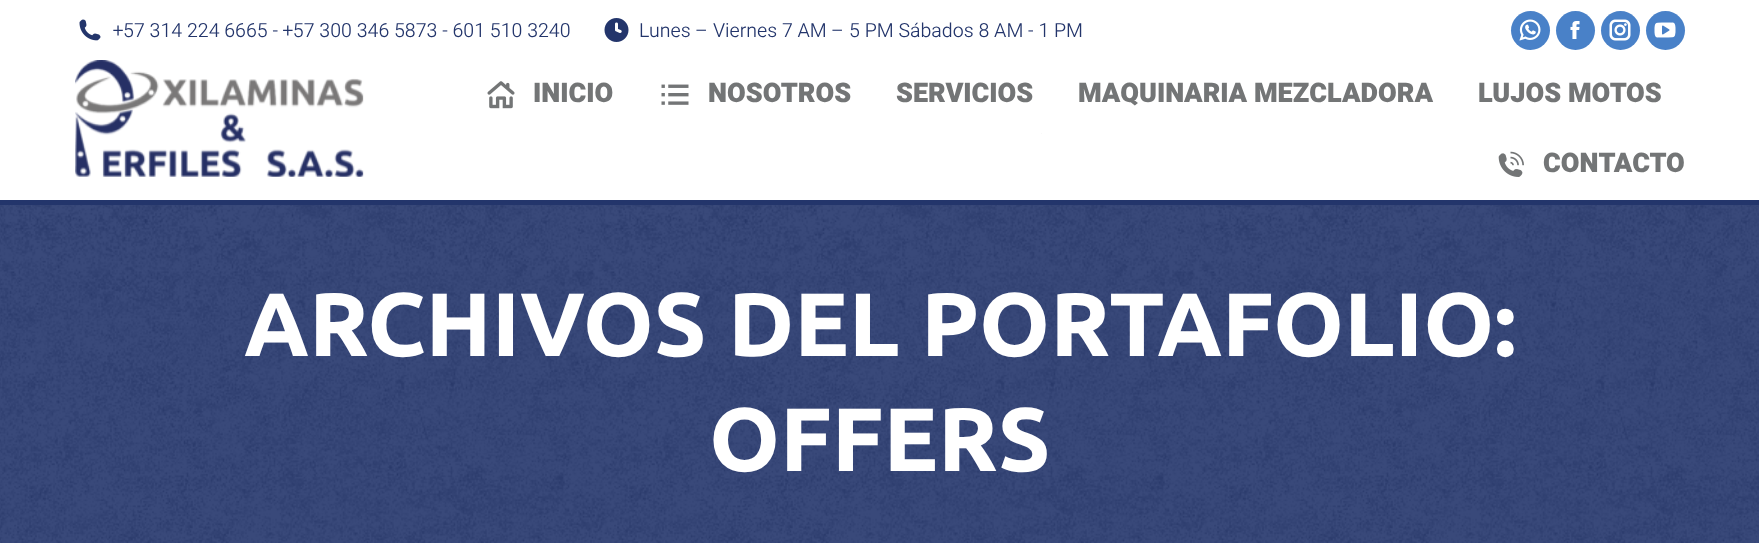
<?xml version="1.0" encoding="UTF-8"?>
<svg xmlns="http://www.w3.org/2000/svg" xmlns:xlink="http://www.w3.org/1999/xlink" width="1759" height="543">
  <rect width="100%" height="100%" fill="#ffffff" />
  <image x="1041" y="133" width="1" height="1" xlink:href="image1.png" />
  <image x="79" y="19" width="22" height="22" xlink:href="image2.png" />
  <image x="604" y="18" width="25" height="24" xlink:href="image3.png" />
  <circle cx="1530.5" cy="30.5" r="19.5" fill="#4981c8" />
  <image x="1519" y="19" width="22" height="22" xlink:href="image4.png" />
  <circle cx="1575.5" cy="30.5" r="19.5" fill="#4981c8" />
  <image x="1570" y="21" width="10" height="18" xlink:href="image5.png" />
  <circle cx="1620.5" cy="30.5" r="19.5" fill="#4981c8" />
  <image x="1609" y="19" width="22" height="22" xlink:href="image6.png" />
  <circle cx="1665.5" cy="30.5" r="19.5" fill="#4981c8" />
  <image x="1654" y="22" width="22" height="16" xlink:href="image7.png" />
  <image x="75" y="60" width="289" height="117" xlink:href="image8.png" />
  <image x="487" y="81" width="28" height="28" xlink:href="image9.png" />
  <image x="661" y="84" width="28" height="21" xlink:href="image10.png" />
  <image x="1498" y="151" width="26" height="26" xlink:href="image11.png" />
  <rect y="200" width="1759" height="343" fill="#23356b" />
  <image x="0" y="205" width="1759" height="338" xlink:href="image12.png" />
  <text x="113" y="37" style="font-family: Heebo; font-size: 19.5px; font-weight: 300; fill: #23356b">+57 314 224 6665 - +57 300 346 5873 - 601 510 3240</text>
  <text x="639" y="37" style="font-family: Heebo; font-size: 19.5px; font-weight: 300; fill: #23356b">Lunes – Viernes 7 AM – 5 PM Sábados 8 AM - 1 PM</text>
  <text x="533" y="102" style="font-family: Heebo; font-size: 27px; font-weight: 900; fill: #737576">INICIO</text>
  <text x="708" y="102" style="font-family: Heebo; font-size: 27px; font-weight: 900; fill: #737576">NOSOTROS</text>
  <text x="896" y="102" style="font-family: Heebo; font-size: 27px; font-weight: 900; fill: #737576">SERVICIOS</text>
  <text x="1078" y="102" style="font-family: Heebo; font-size: 27px; font-weight: 900; fill: #737576">MAQUINARIA MEZCLADORA</text>
  <text x="1478" y="102" style="font-family: Heebo; font-size: 27px; font-weight: 900; fill: #737576">LUJOS MOTOS</text>
  <text x="1543" y="172" style="font-family: Heebo; font-size: 27px; font-weight: 900; fill: #737576">CONTACTO</text>
  <text x="244" y="356" style="font-family: Ubuntu; font-size: 90px; font-weight: bold; fill: #ffffff">ARCHIVOS DEL PORTAFOLIO:</text>
  <text x="709" y="471" style="font-family: Ubuntu; font-size: 90px; font-weight: bold; fill: #ffffff">OFFERS</text>
</svg>
